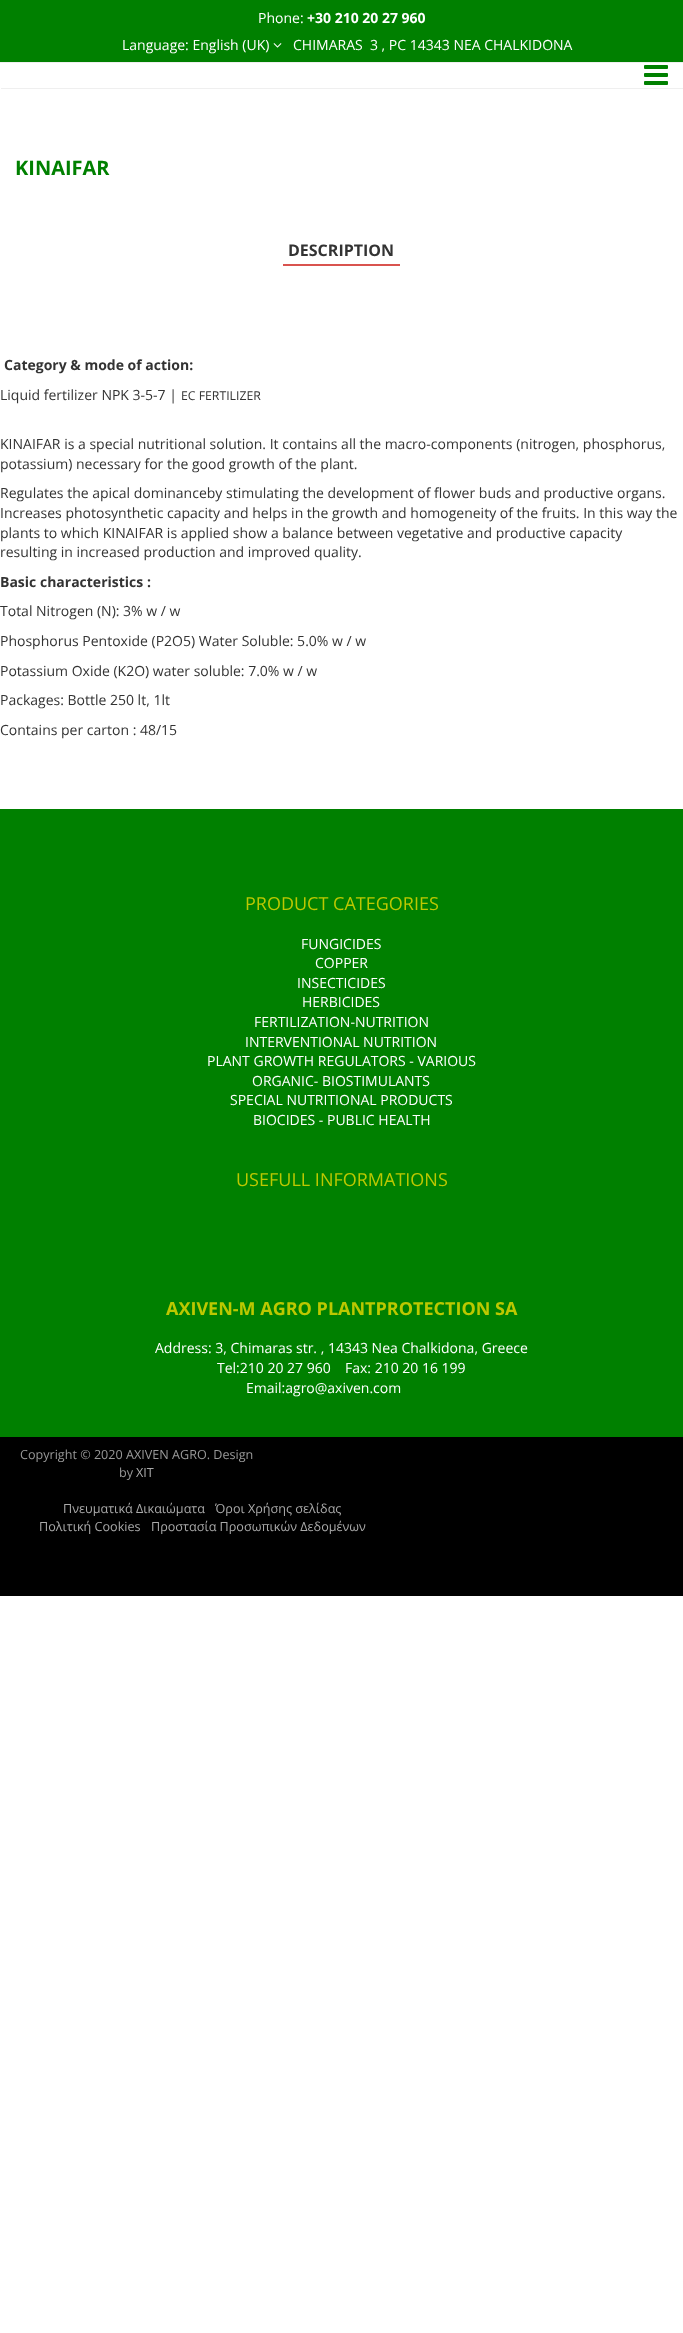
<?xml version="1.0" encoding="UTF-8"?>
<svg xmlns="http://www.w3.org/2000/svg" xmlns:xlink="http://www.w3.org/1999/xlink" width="683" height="2333">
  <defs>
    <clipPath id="clip1"><rect x="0" y="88" width="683" height="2" /></clipPath>
  </defs>
  <rect width="100%" height="100%" fill="#ffffff" />
  <rect width="683" height="62" fill="#008000" />
  <rect y="62" width="683" height="1" fill="#eeeeee" />
  <image x="273" y="43" width="9" height="5" xlink:href="image1.png" />
  <g clip-path="url(#clip1)">
    <rect x="1" y="64" width="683" height="25" fill="#efefef" filter="blur(0.5px)" />
  </g>
  <image x="644" y="65" width="24" height="20" xlink:href="image2.png" />
  <rect x="283" y="264" width="117" height="2" fill="#d9534f" />
  <rect y="809" width="683" height="628" fill="#008000" />
  <rect y="1437" width="683" height="159" fill="#000000" />
  <text x="258" y="23" style="font-family: Open Sans; font-size: 14px; fill: #ffffff">Phone:</text>
  <text x="307" y="23" style="font-family: Open Sans; font-size: 14px; font-weight: bold; fill: #ffffff">+30 210 20 27 960</text>
  <text x="122" y="50" style="font-family: Open Sans; font-size: 14px; fill: #ffffff">Language: English (UK)</text>
  <text x="293" y="50" style="font-family: Open Sans; font-size: 14px; fill: #ffffff" xml:space="preserve">CHIMARAS  3 , PC 14343 ΝΕΑ CHALKIDONA</text>
  <text x="15" y="175" style="font-family: Open Sans; font-size: 20px; font-weight: bold; fill: #008000">KINAIFAR</text>
  <text x="288" y="256" style="font-family: Open Sans; font-size: 16px; font-weight: bold; fill: #333333">DESCRIPTION</text>
  <text x="4" y="370" style="font-family: Open Sans; font-size: 14px; font-weight: bold; fill: #333333">Category &amp; mode of action:</text>
  <text x="0" y="400" style="font-family: Open Sans; font-size: 14px; fill: #333333">Liquid fertilizer NPK 3-5-7 |</text>
  <text x="181" y="400" style="font-family: Open Sans; font-size: 12.25px; fill: #333333">EC FERTILIZER</text>
  <text x="0" y="449" style="font-family: Open Sans; font-size: 14px; fill: #333333">KINAIFAR is a special nutritional solution. It contains all the macro-components (nitrogen, phosphorus,</text>
  <text x="0" y="469" style="font-family: Open Sans; font-size: 14px; fill: #333333">potassium) necessary for the good growth of the plant.</text>
  <text x="0" y="498" style="font-family: Open Sans; font-size: 14px; fill: #333333">Regulates the apical dominanceby stimulating the development of flower buds and productive organs.</text>
  <text x="0" y="518" style="font-family: Open Sans; font-size: 14px; fill: #333333">Increases photosynthetic capacity and helps in the growth and homogeneity of the fruits. In this way the</text>
  <text x="0" y="538" style="font-family: Open Sans; font-size: 14px; fill: #333333">plants to which KINAIFAR is applied show a balance between vegetative and productive capacity</text>
  <text x="0" y="557" style="font-family: Open Sans; font-size: 14px; fill: #333333">resulting in increased production and improved quality.</text>
  <text x="0" y="587" style="font-family: Open Sans; font-size: 14px; font-weight: bold; fill: #333333">Basic characteristics :</text>
  <text x="0" y="616" style="font-family: Open Sans; font-size: 14px; fill: #333333">Total Nitrogen (N): 3% w / w</text>
  <text x="0" y="646" style="font-family: Open Sans; font-size: 14px; fill: #333333">Phosphorus Pentoxide (P2O5) Water Soluble: 5.0% w / w</text>
  <text x="0" y="676" style="font-family: Open Sans; font-size: 14px; fill: #333333">Potassium Oxide (K2O) water soluble: 7.0% w / w</text>
  <text x="0" y="705" style="font-family: Open Sans; font-size: 14px; fill: #333333">Packages: Bottle 250 lt, 1lt</text>
  <text x="0" y="735" style="font-family: Open Sans; font-size: 14px; fill: #333333">Contains per carton : 48/15</text>
  <text x="245" y="910" style="font-family: Open Sans; font-size: 18px; fill: #bcc800">PRODUCT CATEGORIES</text>
  <text x="301" y="949" style="font-family: Open Sans; font-size: 14px; fill: #ffffff">FUNGICIDES</text>
  <text x="315" y="968" style="font-family: Open Sans; font-size: 14px; fill: #ffffff">COPPER</text>
  <text x="297" y="988" style="font-family: Open Sans; font-size: 14px; fill: #ffffff">INSECTICIDES</text>
  <text x="302" y="1007" style="font-family: Open Sans; font-size: 14px; fill: #ffffff">HERBICIDES</text>
  <text x="254" y="1027" style="font-family: Open Sans; font-size: 14px; fill: #ffffff">FERTILIZATION-NUTRITION</text>
  <text x="245" y="1047" style="font-family: Open Sans; font-size: 14px; fill: #ffffff">INTERVENTIONAL NUTRITION</text>
  <text x="207" y="1066" style="font-family: Open Sans; font-size: 14px; fill: #ffffff">PLANT GROWTH REGULATORS - VARIOUS</text>
  <text x="252" y="1086" style="font-family: Open Sans; font-size: 14px; fill: #ffffff">ORGANIC- BIOSTIMULANTS</text>
  <text x="230" y="1105" style="font-family: Open Sans; font-size: 14px; fill: #ffffff">SPECIAL NUTRITIONAL PRODUCTS</text>
  <text x="253" y="1125" style="font-family: Open Sans; font-size: 14px; fill: #ffffff">BIOCIDES - PUBLIC HEALTH</text>
  <text x="236" y="1186" style="font-family: Open Sans; font-size: 18px; fill: #bcc800">USEFULL INFORMATIONS</text>
  <text x="166" y="1315" style="font-family: Open Sans; font-size: 18px; font-weight: bold; fill: #bcc800">AXIVEN-M AGRO PLANTPROTECTION SA</text>
  <text x="155" y="1353" style="font-family: Open Sans; font-size: 14px; fill: #ffffff">Address: 3, Chimaras str. , 14343 Nea Chalkidona, Greece</text>
  <text x="217" y="1373" style="font-family: Open Sans; font-size: 14px; fill: #ffffff">Tel:210 20 27 960</text>
  <text x="345" y="1373" style="font-family: Open Sans; font-size: 14px; fill: #ffffff">Fax: 210 20 16 199</text>
  <text x="246" y="1393" style="font-family: Open Sans; font-size: 14px; fill: #ffffff">Email:agro@axiven.com</text>
  <text x="20" y="1459" style="font-family: Open Sans; font-size: 12.6px; fill: #999999">Copyright © 2020 AXIVEN AGRO. Design</text>
  <text x="119" y="1477" style="font-family: Open Sans; font-size: 12.6px; fill: #999999">by</text>
  <text x="136" y="1477" style="font-family: Open Sans; font-size: 12.6px; fill: #aaaaaa">XIT</text>
  <text x="63" y="1513" style="font-family: Open Sans; font-size: 12.6px; fill: #aaaaaa">Πνευματικά Δικαιώματα</text>
  <text x="215" y="1513" style="font-family: Open Sans; font-size: 12.6px; fill: #aaaaaa">Όροι Χρήσης σελίδας</text>
  <text x="39" y="1531" style="font-family: Open Sans; font-size: 12.6px; fill: #aaaaaa">Πολιτική Cookies</text>
  <text x="151" y="1531" style="font-family: Open Sans; font-size: 12.6px; fill: #aaaaaa">Προστασία Προσωπικών Δεδομένων</text>
</svg>
